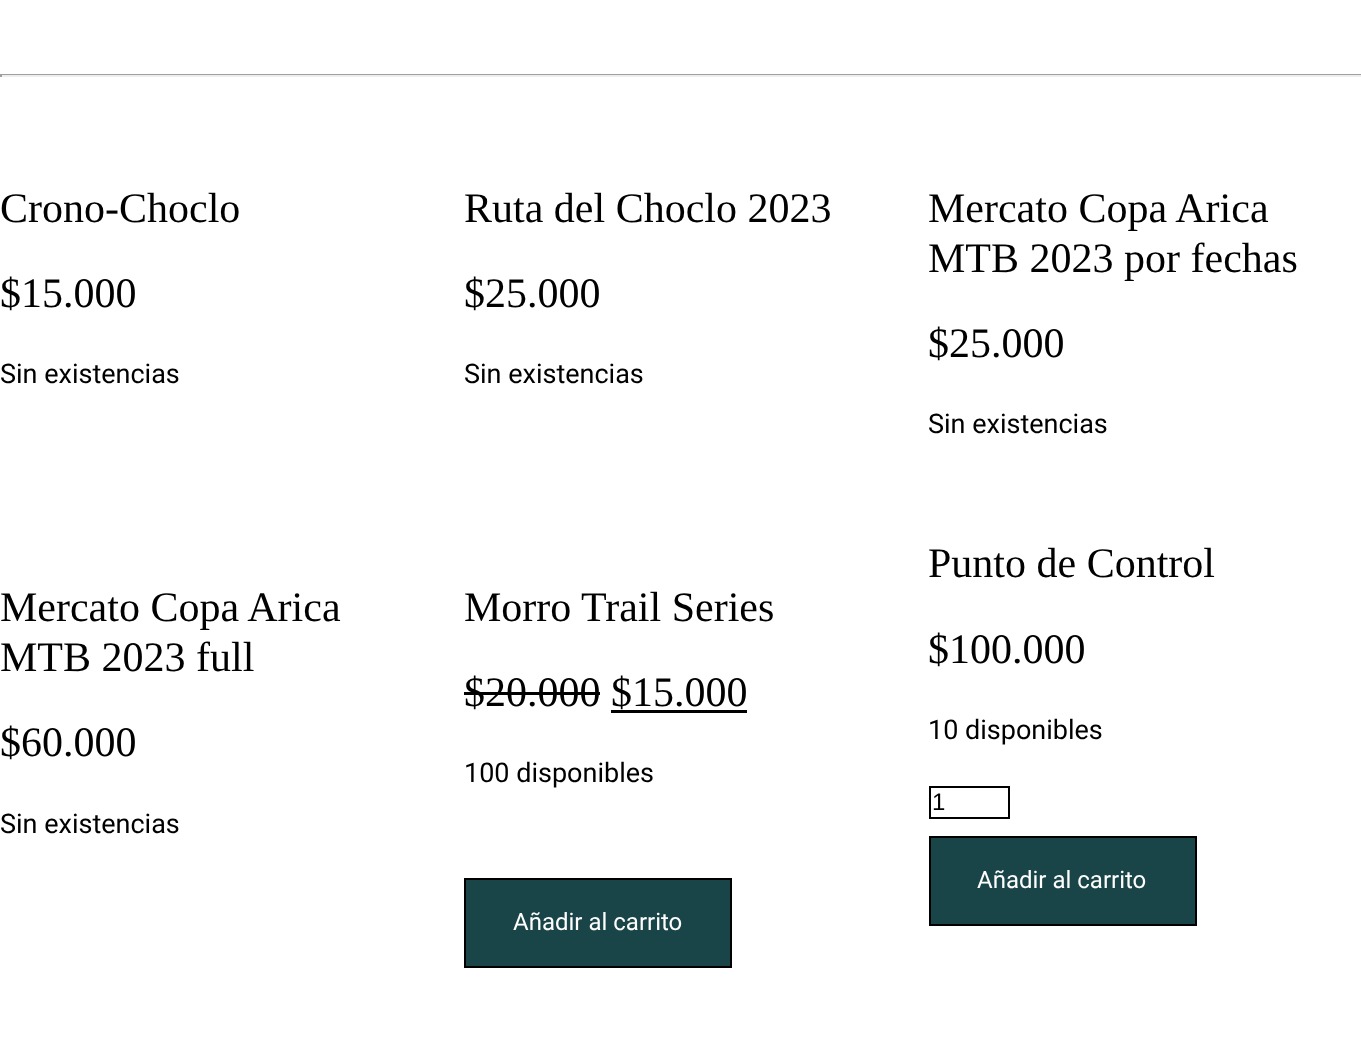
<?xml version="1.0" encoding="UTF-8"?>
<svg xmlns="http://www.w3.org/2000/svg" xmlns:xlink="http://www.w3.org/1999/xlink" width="1361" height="1045">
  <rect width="100%" height="100%" fill="#ffffff" />
  <rect y="74" width="1361" height="1" fill="#9f9f9f" />
  <rect y="75" width="1361" height="2" fill="#eeeeee" />
  <rect y="74" width="2" height="3" fill="#9f9f9f" />
  <rect x="464" y="692" width="136" height="3" fill="#000000" />
  <rect x="611" y="710" width="136" height="3" fill="#000000" />
  <rect x="465" y="879" width="266" height="88" fill="#1a4548" stroke="#000000" stroke-width="2" />
  <rect x="930" y="787" width="79" height="31" fill="none" stroke="#000000" stroke-width="2" />
  <rect x="930" y="837" width="266" height="88" fill="#1a4548" stroke="#000000" stroke-width="2" />
  <text x="0" y="222" style="font-family: Liberation Serif; font-size: 42px; fill: #000000">Crono-Choclo</text>
  <text x="0" y="307" style="font-family: Liberation Serif; font-size: 42px; fill: #000000">$15.000</text>
  <text x="0" y="383" style="font-family: Roboto; font-size: 27px; fill: #000000">Sin existencias</text>
  <text x="464" y="222" style="font-family: Liberation Serif; font-size: 42px; fill: #000000">Ruta del Choclo 2023</text>
  <text x="464" y="307" style="font-family: Liberation Serif; font-size: 42px; fill: #000000">$25.000</text>
  <text x="464" y="383" style="font-family: Roboto; font-size: 27px; fill: #000000">Sin existencias</text>
  <text x="928" y="222" style="font-family: Liberation Serif; font-size: 42px; fill: #000000">Mercato Copa Arica</text>
  <text x="928" y="272" style="font-family: Liberation Serif; font-size: 42px; fill: #000000">MTB 2023 por fechas</text>
  <text x="928" y="357" style="font-family: Liberation Serif; font-size: 42px; fill: #000000">$25.000</text>
  <text x="928" y="433" style="font-family: Roboto; font-size: 27px; fill: #000000">Sin existencias</text>
  <text x="0" y="621" style="font-family: Liberation Serif; font-size: 42px; fill: #000000">Mercato Copa Arica</text>
  <text x="0" y="671" style="font-family: Liberation Serif; font-size: 42px; fill: #000000">MTB 2023 full</text>
  <text x="0" y="756" style="font-family: Liberation Serif; font-size: 42px; fill: #000000">$60.000</text>
  <text x="0" y="833" style="font-family: Roboto; font-size: 27px; fill: #000000">Sin existencias</text>
  <text x="464" y="621" style="font-family: Liberation Serif; font-size: 42px; fill: #000000">Morro Trail Series</text>
  <text x="464" y="706" style="font-family: Liberation Serif; font-size: 42px; fill: #000000">$20.000 $15.000</text>
  <text x="464" y="782" style="font-family: Roboto; font-size: 27px; fill: #000000">100 disponibles</text>
  <text x="513" y="930" style="font-family: Roboto; font-size: 24px; fill: #ffffff">Añadir al carrito</text>
  <text x="928" y="577" style="font-family: Liberation Serif; font-size: 42px; fill: #000000">Punto de Control</text>
  <text x="928" y="663" style="font-family: Liberation Serif; font-size: 42px; fill: #000000">$100.000</text>
  <text x="928" y="739" style="font-family: Roboto; font-size: 27px; fill: #000000">10 disponibles</text>
  <text x="932" y="810" style="font-family: Liberation Sans; font-size: 24px; fill: #000000">1</text>
  <text x="977" y="888" style="font-family: Roboto; font-size: 24px; fill: #ffffff">Añadir al carrito</text>
</svg>
